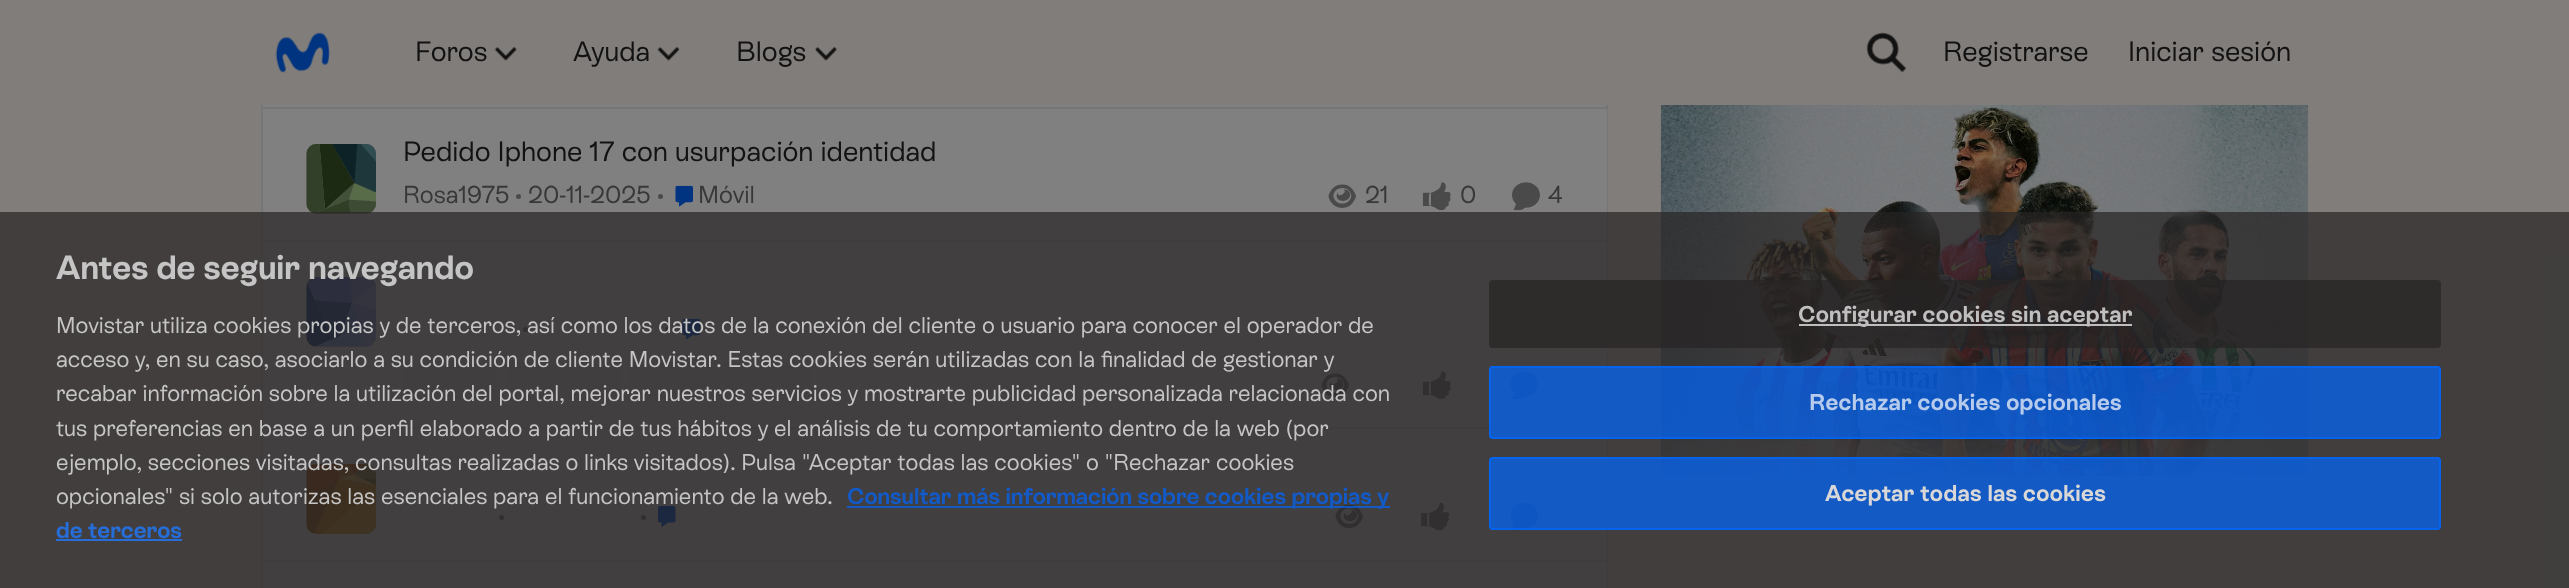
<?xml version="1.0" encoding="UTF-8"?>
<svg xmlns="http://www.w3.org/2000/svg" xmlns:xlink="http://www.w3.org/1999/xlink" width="2569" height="588">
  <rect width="100%" height="100%" fill="#807d7b" />
  <rect x="263" y="105" width="1343" height="4" fill="#808080" />
  <rect x="262" y="-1" width="1345" height="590" fill="none" stroke="#767676" stroke-width="2" />
  <rect x="261" width="1347" height="105" fill="#807d7b" />
  <image x="275" y="32" width="55" height="41" xlink:href="image1.png" />
  <image x="494" y="46" width="23" height="15" xlink:href="image2.png" />
  <image x="657" y="46" width="23" height="15" xlink:href="image3.png" />
  <image x="815" y="46" width="22" height="15" xlink:href="image4.png" />
  <image x="1866" y="32" width="41" height="41" xlink:href="image5.png" />
  <rect x="263" y="107" width="1344" height="2" fill="#000000" fill-opacity="0.08" />
  <rect x="263" y="109" width="1344" height="131" fill="#808080" />
  <rect x="263" y="240" width="1344" height="2" fill="#767676" />
  <rect x="306" y="144" width="70" height="70" rx="11" fill="#6d6d6d" />
  <image x="306" y="144" width="70" height="70" xlink:href="image6.png" />
  <circle cx="518.5" cy="196.5" r="2.5" fill="#4a4a4a" />
  <circle cx="660.5" cy="196.5" r="2.5" fill="#4a4a4a" />
  <image x="675" y="185" width="18" height="22" xlink:href="image7.png" />
  <image x="1328" y="184" width="28" height="24" xlink:href="image8.png" />
  <image x="1422" y="182" width="29" height="29" xlink:href="image9.png" />
  <image x="1512" y="182" width="28" height="29" xlink:href="image10.png" />
  <rect x="263" y="242" width="1344" height="185" fill="#808080" />
  <rect x="263" y="427" width="1344" height="2" fill="#767676" />
  <rect x="306" y="277" width="70" height="70" rx="11" fill="#6d6d6d" />
  <image x="306" y="277" width="70" height="70" xlink:href="image11.png" />
  <circle cx="525.5" cy="329.5" r="2.5" fill="#4a4a4a" />
  <circle cx="667.5" cy="329.5" r="2.5" fill="#4a4a4a" />
  <image x="682" y="318" width="18" height="22" xlink:href="image7.png" />
  <rect x="403" y="362" width="94" height="39" rx="5" fill="#7c7c7c" />
  <rect x="506" y="362" width="115" height="39" rx="5" fill="#7c7c7c" />
  <rect x="630" y="362" width="180" height="39" rx="5" fill="#7c7c7c" />
  <image x="1321" y="373" width="28" height="24" xlink:href="image12.png" />
  <image x="1422" y="371" width="29" height="29" xlink:href="image13.png" />
  <image x="1510" y="371" width="29" height="29" xlink:href="image14.png" />
  <rect x="263" y="429" width="1344" height="131" fill="#808080" />
  <rect x="263" y="560" width="1344" height="2" fill="#767676" />
  <rect x="306" y="464" width="70" height="70" rx="11" fill="#6d6d6d" />
  <image x="306" y="464" width="70" height="70" xlink:href="image15.png" />
  <circle cx="501.5" cy="517.5" r="2.5" fill="#4a4a4a" />
  <circle cx="643.5" cy="517.5" r="2.5" fill="#4a4a4a" />
  <image x="658" y="506" width="18" height="21" xlink:href="image16.png" />
  <image x="1335" y="504" width="28" height="25" xlink:href="image17.png" />
  <image x="1421" y="502" width="28" height="29" xlink:href="image18.png" />
  <image x="1510" y="502" width="29" height="29" xlink:href="image19.png" />
  <rect x="263" y="562" width="1344" height="26" fill="#808080" />
  <image x="1660" y="105" width="649" height="372" xlink:href="image20.png" />
  <rect y="212" width="2569" height="376" fill="#262423" fill-opacity="0.7" />
  <rect x="847" y="506" width="543" height="2" fill="#0066ff" fill-opacity="0.7" />
  <rect x="56" y="539" width="126" height="2" fill="#266dd7" />
  <rect x="1489" y="280" width="952" height="68" rx="4" fill="#262423" fill-opacity="0.7" />
  <rect x="1799" y="324" width="333" height="2" fill="#ffffff" fill-opacity="0.7" />
  <rect x="1489" y="366" width="952" height="73" rx="4" fill="#0066ff" fill-opacity="0.7" />
  <rect x="1490" y="367" width="950" height="71" rx="3" fill="none" stroke="#0066ff" stroke-opacity="0.7" stroke-width="2" />
  <rect x="1489" y="457" width="952" height="73" rx="4" fill="#0066ff" fill-opacity="0.7" />
  <rect x="1490" y="458" width="950" height="71" rx="3" fill="none" stroke="#0066ff" stroke-opacity="0.7" stroke-width="2" />
  <text x="415" y="61" style="font-family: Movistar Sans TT; font-size: 28px; fill: #131212">Foros</text>
  <text x="573" y="61" style="font-family: Movistar Sans TT; font-size: 28px; fill: #131212">Ayuda</text>
  <text x="736" y="61" style="font-family: Movistar Sans TT; font-size: 28px; fill: #131212">Blogs</text>
  <text x="1943" y="61" style="font-family: Movistar Sans TT; font-size: 28px; fill: #131212">Registrarse</text>
  <text x="2128" y="61" style="font-family: Movistar Sans TT; font-size: 28px; fill: #131212">Iniciar sesión</text>
  <text x="403" y="161" style="font-family: Movistar Sans TT; font-size: 28px; fill: #131212">Pedido Iphone 17 con usurpación identidad</text>
  <text x="403" y="203" style="font-family: Movistar Sans TT; font-size: 24.5px; fill: #383838">Rosa1975</text>
  <text x="528" y="203" style="font-family: Movistar Sans TT; font-size: 24.5px; fill: #383838">20-11-2025</text>
  <text x="698" y="203" style="font-family: Movistar Sans TT; font-size: 24.5px; fill: #383838">Móvil</text>
  <text x="1365" y="203" style="font-family: Movistar Sans TT; font-size: 24.5px; fill: #383838">21</text>
  <text x="1460" y="203" style="font-family: Movistar Sans TT; font-size: 24.5px; fill: #383838">0</text>
  <text x="1548" y="203" style="font-family: Movistar Sans TT; font-size: 24.5px; fill: #383838">4</text>
  <text x="56" y="279" style="font-family: Movistar Sans TT; font-size: 33.6px; font-weight: bold; fill: #c6c5c5">Antes de seguir navegando</text>
  <text x="56" y="333" style="font-family: Movistar Sans TT; font-size: 22.75px; fill: #c6c5c5">Movistar utiliza cookies propias y de terceros, así como los datos de la conexión del cliente o usuario para conocer el operador de</text>
  <text x="56" y="367" style="font-family: Movistar Sans TT; font-size: 22.75px; fill: #c6c5c5">acceso y, en su caso, asociarlo a su condición de cliente Movistar. Estas cookies serán utilizadas con la finalidad de gestionar y</text>
  <text x="56" y="401" style="font-family: Movistar Sans TT; font-size: 22.75px; fill: #c6c5c5">recabar información sobre la utilización del portal, mejorar nuestros servicios y mostrarte publicidad personalizada relacionada con</text>
  <text x="56" y="436" style="font-family: Movistar Sans TT; font-size: 22.75px; fill: #c6c5c5">tus preferencias en base a un perfil elaborado a partir de tus hábitos y el análisis de tu comportamiento dentro de la web (por</text>
  <text x="56" y="470" style="font-family: Movistar Sans TT; font-size: 22.75px; fill: #c6c5c5">ejemplo, secciones visitadas, consultas realizadas o links visitados). Pulsa "Aceptar todas las cookies" o "Rechazar cookies</text>
  <text x="56" y="504" style="font-family: Movistar Sans TT; font-size: 22.75px; fill: #c6c5c5">opcionales" si solo autorizas las esenciales para el funcionamiento de la web.</text>
  <text x="847" y="504" style="font-family: Movistar Sans TT; font-size: 22.75px; font-weight: bold; fill: #135ac6">Consultar más información sobre cookies propias y</text>
  <text x="56" y="538" style="font-family: Movistar Sans TT; font-size: 22.75px; font-weight: bold; fill: #266dd7">de terceros</text>
  <text x="1798" y="322" style="font-family: Movistar Sans TT; font-size: 22.75px; font-weight: bold; letter-spacing: 0.25px; fill: #c0bfbf">Configurar cookies sin aceptar</text>
  <text x="1809" y="410" style="font-family: Movistar Sans TT; font-size: 22.75px; font-weight: bold; letter-spacing: 0.25px; fill: #b7ccec">Rechazar cookies opcionales</text>
  <text x="1825" y="501" style="font-family: Movistar Sans TT; font-size: 22.75px; font-weight: bold; letter-spacing: 0.25px; fill: #d9d8d7">Aceptar todas las cookies</text>
</svg>
